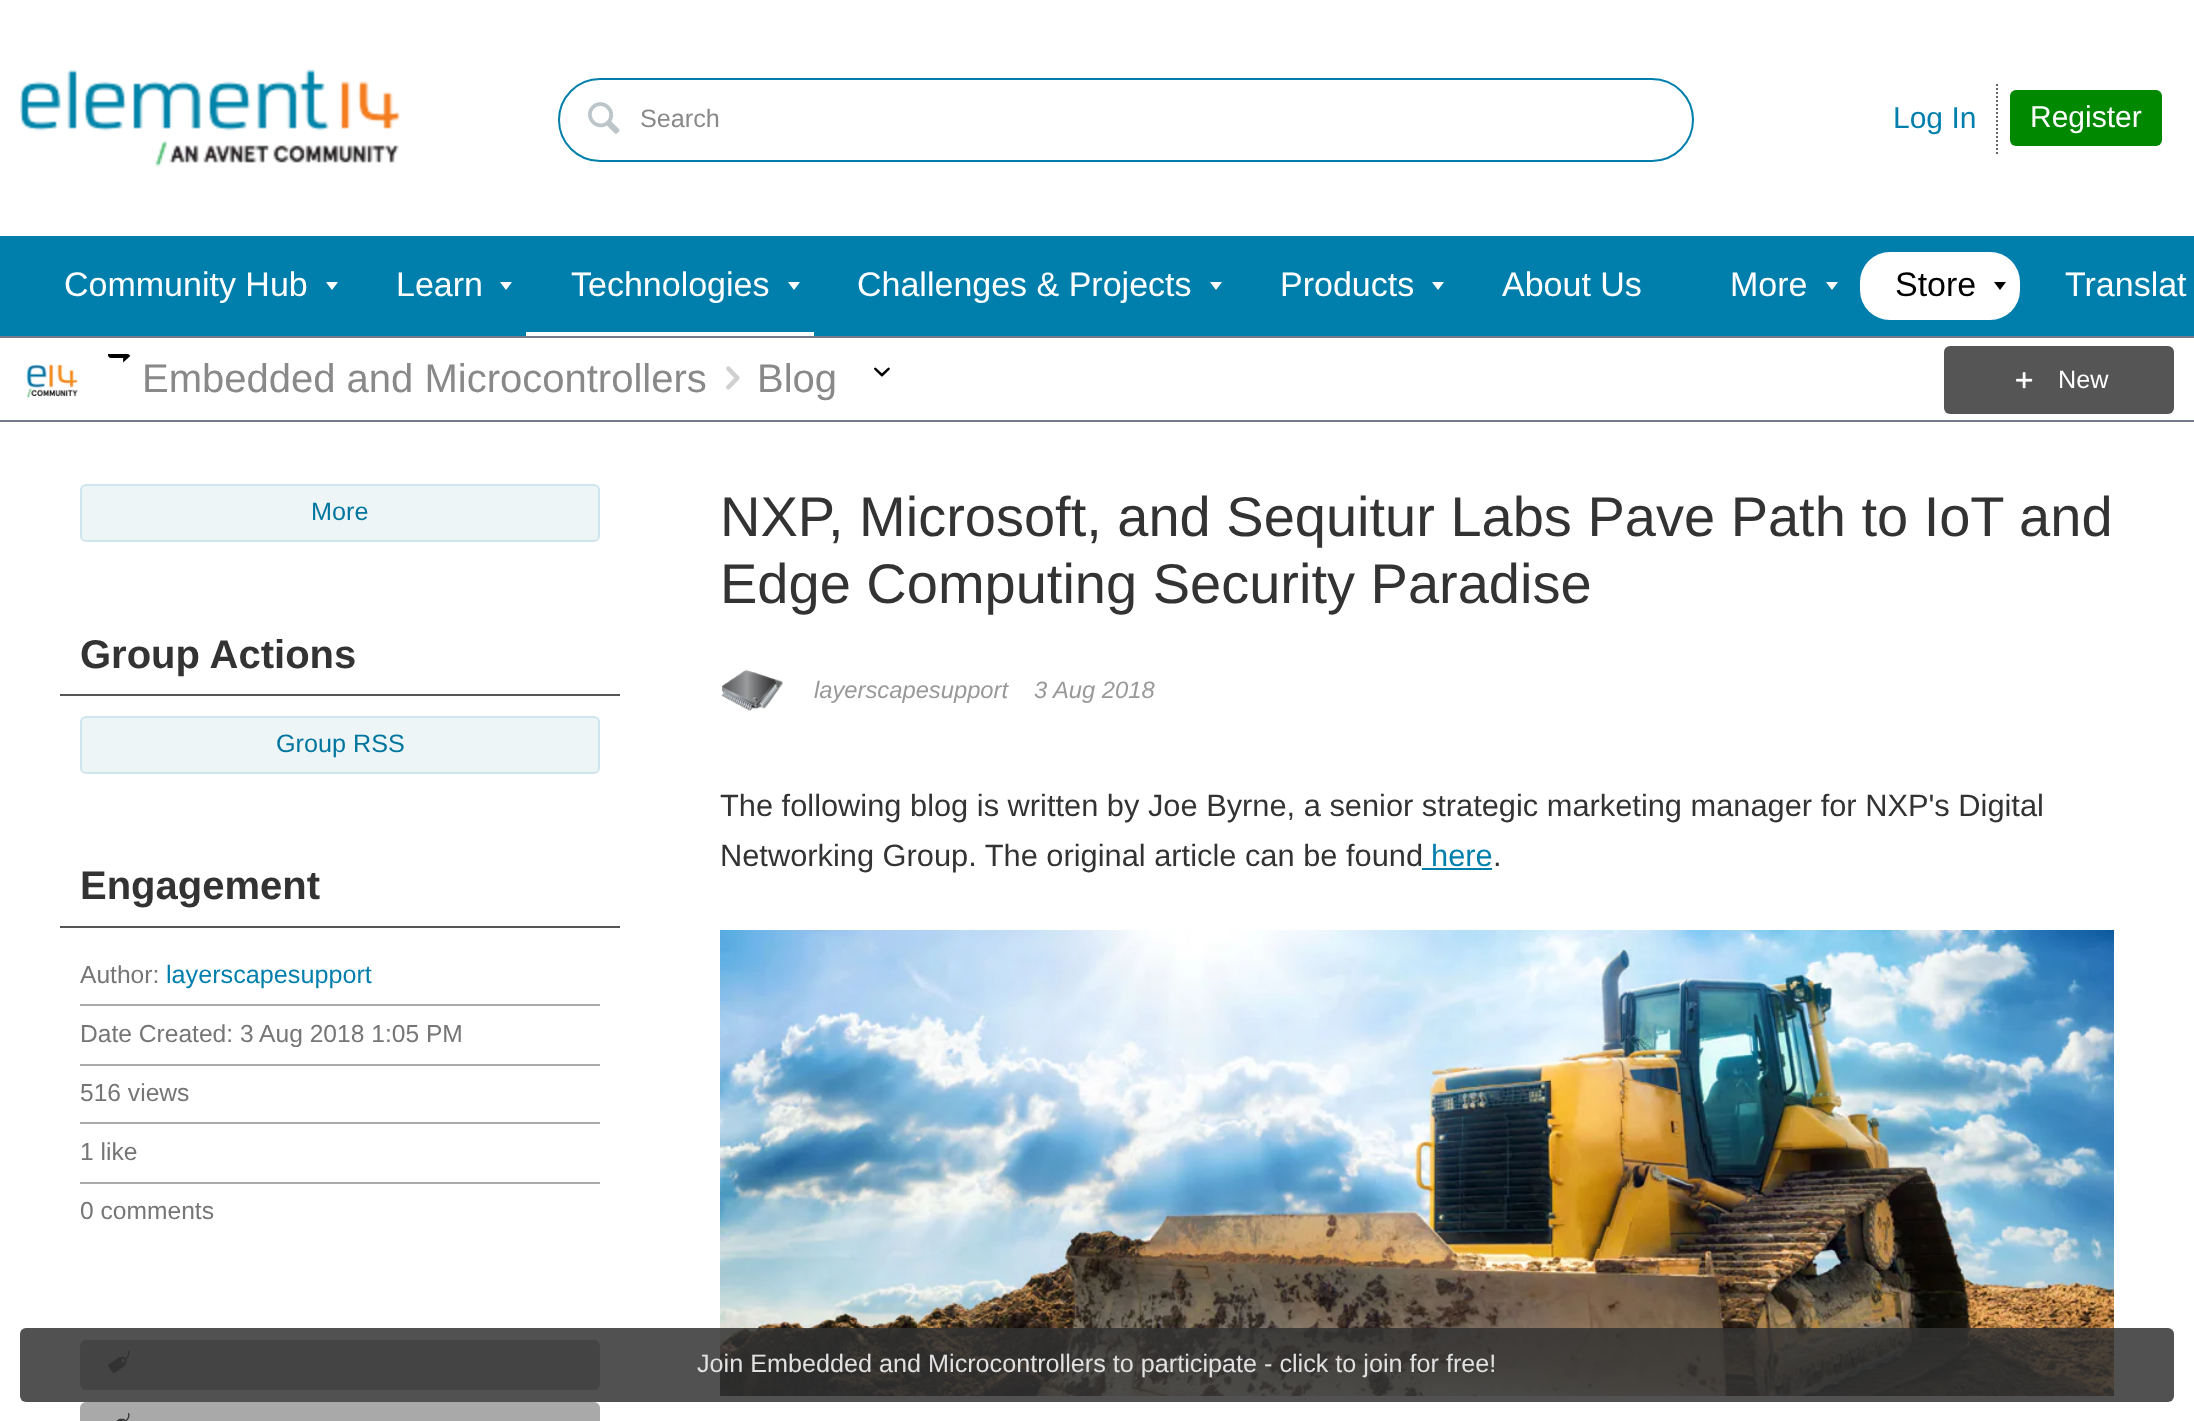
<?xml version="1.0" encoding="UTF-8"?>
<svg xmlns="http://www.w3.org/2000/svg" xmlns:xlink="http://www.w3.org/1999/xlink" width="2194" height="1421">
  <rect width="100%" height="100%" fill="#ffffff" />
  <image x="20" y="69" width="380" height="98" xlink:href="image1.png" />
  <rect x="559" y="79" width="1134" height="82" rx="41" fill="none" stroke="#007fac" stroke-width="2" />
  <image x="588" y="102" width="32" height="32" xlink:href="image2.png" />
  <path d="M 1997 84 v 70" fill="none" stroke="#666666" stroke-width="2" stroke-dasharray="2 2" />
  <rect x="2010" y="90" width="152" height="56" rx="6" fill="#008800" />
  <rect y="236" width="2194" height="100" fill="#007fac" />
  <path d="M 326 282 h 12 l -6 8 z" fill="#ffffff" />
  <path d="M 500 282 h 12 l -6 8 z" fill="#ffffff" />
  <path d="M 788 282 h 12 l -6 8 z" fill="#ffffff" />
  <rect x="526" y="332" width="288" height="4" fill="#ffffff" />
  <path d="M 1210 282 h 12 l -6 8 z" fill="#ffffff" />
  <path d="M 1432 282 h 12 l -6 8 z" fill="#ffffff" />
  <path d="M 1826 282 h 12 l -6 8 z" fill="#ffffff" />
  <rect x="1860" y="252" width="160" height="68" rx="30" fill="#ffffff" />
  <path d="M 1994 282 h 12 l -6 8 z" fill="#000000" />
  <rect y="336" width="2194" height="2" fill="#767a8c" />
  <image x="24" y="363" width="55" height="38" xlink:href="image3.png" />
  <image x="108" y="354" width="23" height="9" xlink:href="image4.png" />
  <image x="726" y="366" width="14" height="24" xlink:href="image5.png" />
  <image x="874" y="367" width="16" height="10" xlink:href="image6.png" />
  <rect x="1944" y="346" width="230" height="68" rx="6" fill="#555555" />
  <image x="2016" y="372" width="17" height="17" xlink:href="image7.png" />
  <rect x="80" y="1340" width="520" height="50" rx="6" fill="#a9a9a9" />
  <image x="108" y="1351" width="22" height="23" xlink:href="image8.png" />
  <image x="720" y="930" width="1394" height="466" xlink:href="image12.png" />
  <rect x="20" y="1328" width="2154" height="74" rx="6" fill="#333333" fill-opacity="0.85" />
  <rect y="420" width="2194" height="2" fill="#767a8c" />
  <rect x="81" y="485" width="518" height="56" rx="5" fill="#edf5f7" stroke="#cfe6ed" stroke-width="2" />
  <rect x="60" y="694" width="560" height="2" fill="#555555" />
  <rect x="81" y="717" width="518" height="56" rx="5" fill="#edf5f7" stroke="#cfe6ed" stroke-width="2" />
  <rect x="60" y="926" width="560" height="2" fill="#555555" />
  <rect x="80" y="1004" width="520" height="2" fill="#a9a9a9" />
  <rect x="80" y="1064" width="520" height="2" fill="#a9a9a9" />
  <rect x="80" y="1122" width="520" height="2" fill="#a9a9a9" />
  <rect x="80" y="1182" width="520" height="2" fill="#a9a9a9" />
  <rect x="80" y="1402" width="520" height="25" rx="6" fill="#a9a9a9" />
  <image x="116" y="1413" width="14" height="8" xlink:href="image9.png" />
  <image x="721" y="670" width="62" height="41" xlink:href="image10.png" />
  <image x="721" y="670" width="62" height="41" xlink:href="image11.png" />
  <rect x="1422" y="868" width="70" height="2" fill="#007fac" />
  <text x="640" y="127" style="font-family: Liberation Sans; font-size: 25.2px; fill: #898989">Search</text>
  <text x="1893" y="128" style="font-family: Liberation Sans; font-size: 30px; fill: #007fac">Log In</text>
  <text x="2030" y="127" style="font-family: Liberation Sans; font-size: 30px; fill: #ffffff">Register</text>
  <text x="64" y="296" style="font-family: Liberation Sans; font-size: 34px; fill: #ffffff">Community Hub</text>
  <text x="396" y="296" style="font-family: Liberation Sans; font-size: 34px; fill: #ffffff">Learn</text>
  <text x="571" y="296" style="font-family: Liberation Sans; font-size: 34px; fill: #ffffff">Technologies</text>
  <text x="857" y="296" style="font-family: Liberation Sans; font-size: 34px; fill: #ffffff">Challenges &amp; Projects</text>
  <text x="1280" y="296" style="font-family: Liberation Sans; font-size: 34px; fill: #ffffff">Products</text>
  <text x="1502" y="296" style="font-family: Liberation Sans; font-size: 34px; fill: #ffffff">About Us</text>
  <text x="1730" y="296" style="font-family: Liberation Sans; font-size: 34px; fill: #ffffff">More</text>
  <text x="1895" y="296" style="font-family: Liberation Sans; font-size: 34px; fill: #000000">Store</text>
  <text x="2065" y="296" style="font-family: Liberation Sans; font-size: 34px; fill: #ffffff">Translat</text>
  <text x="142" y="392" style="font-family: Liberation Sans; font-size: 40px; fill: #898989">Embedded and Microcontrollers</text>
  <text x="757" y="392" style="font-family: Liberation Sans; font-size: 40px; fill: #898989">Blog</text>
  <text x="2058" y="388" style="font-family: Liberation Sans; font-size: 25.2px; fill: #ffffff">New</text>
  <text x="697" y="1372" style="font-family: Liberation Sans; font-size: 25.2px; fill: #e2e1e1">Join Embedded and Microcontrollers to participate - click to join for free!</text>
  <text x="311" y="520" style="font-family: Liberation Sans; font-size: 25.2px; fill: #00769f">More</text>
  <text x="80" y="668" style="font-family: Liberation Sans; font-size: 40px; font-weight: bold; fill: #333333">Group Actions</text>
  <text x="276" y="752" style="font-family: Liberation Sans; font-size: 25.2px; fill: #00769f">Group RSS</text>
  <text x="80" y="899" style="font-family: Liberation Sans; font-size: 40px; font-weight: bold; fill: #333333">Engagement</text>
  <text x="80" y="983" style="font-family: Liberation Sans; font-size: 24.6px; fill: #767676">Author:</text>
  <text x="166" y="983" style="font-family: Liberation Sans; font-size: 25.2px; fill: #007fac">layerscapesupport</text>
  <text x="80" y="1042" style="font-family: Liberation Sans; font-size: 24.6px; fill: #767676">Date Created: 3 Aug 2018 1:05 PM</text>
  <text x="80" y="1101" style="font-family: Liberation Sans; font-size: 24.6px; fill: #767676">516 views</text>
  <text x="80" y="1160" style="font-family: Liberation Sans; font-size: 24.6px; fill: #767676">1 like</text>
  <text x="80" y="1219" style="font-family: Liberation Sans; font-size: 24.6px; fill: #767676">0 comments</text>
  <text x="720" y="536" style="font-family: Liberation Sans; font-size: 56px; fill: #333333">NXP, Microsoft, and Sequitur Labs Pave Path to IoT and</text>
  <text x="720" y="603" style="font-family: Liberation Sans; font-size: 56px; fill: #333333">Edge Computing Security Paradise</text>
  <text x="814" y="698" style="font-family: Liberation Sans; font-size: 23.75px; font-style: italic; fill: #999999">layerscapesupport</text>
  <text x="1034" y="698" style="font-family: Liberation Sans; font-size: 23.75px; font-style: italic; fill: #999999">3 Aug 2018</text>
  <text x="720" y="816" style="font-family: Liberation Sans; font-size: 30.8px; fill: #333333">The following blog is written by Joe Byrne, a senior strategic marketing manager for NXP's Digital</text>
  <text x="720" y="866" style="font-family: Liberation Sans; font-size: 30.8px; fill: #333333">Networking Group. The original article can be found</text>
  <text x="1431" y="866" style="font-family: Liberation Sans; font-size: 30.8px; fill: #007fac">here</text>
  <text x="1493" y="866" style="font-family: Liberation Sans; font-size: 30.8px; fill: #333333">.</text>
</svg>
